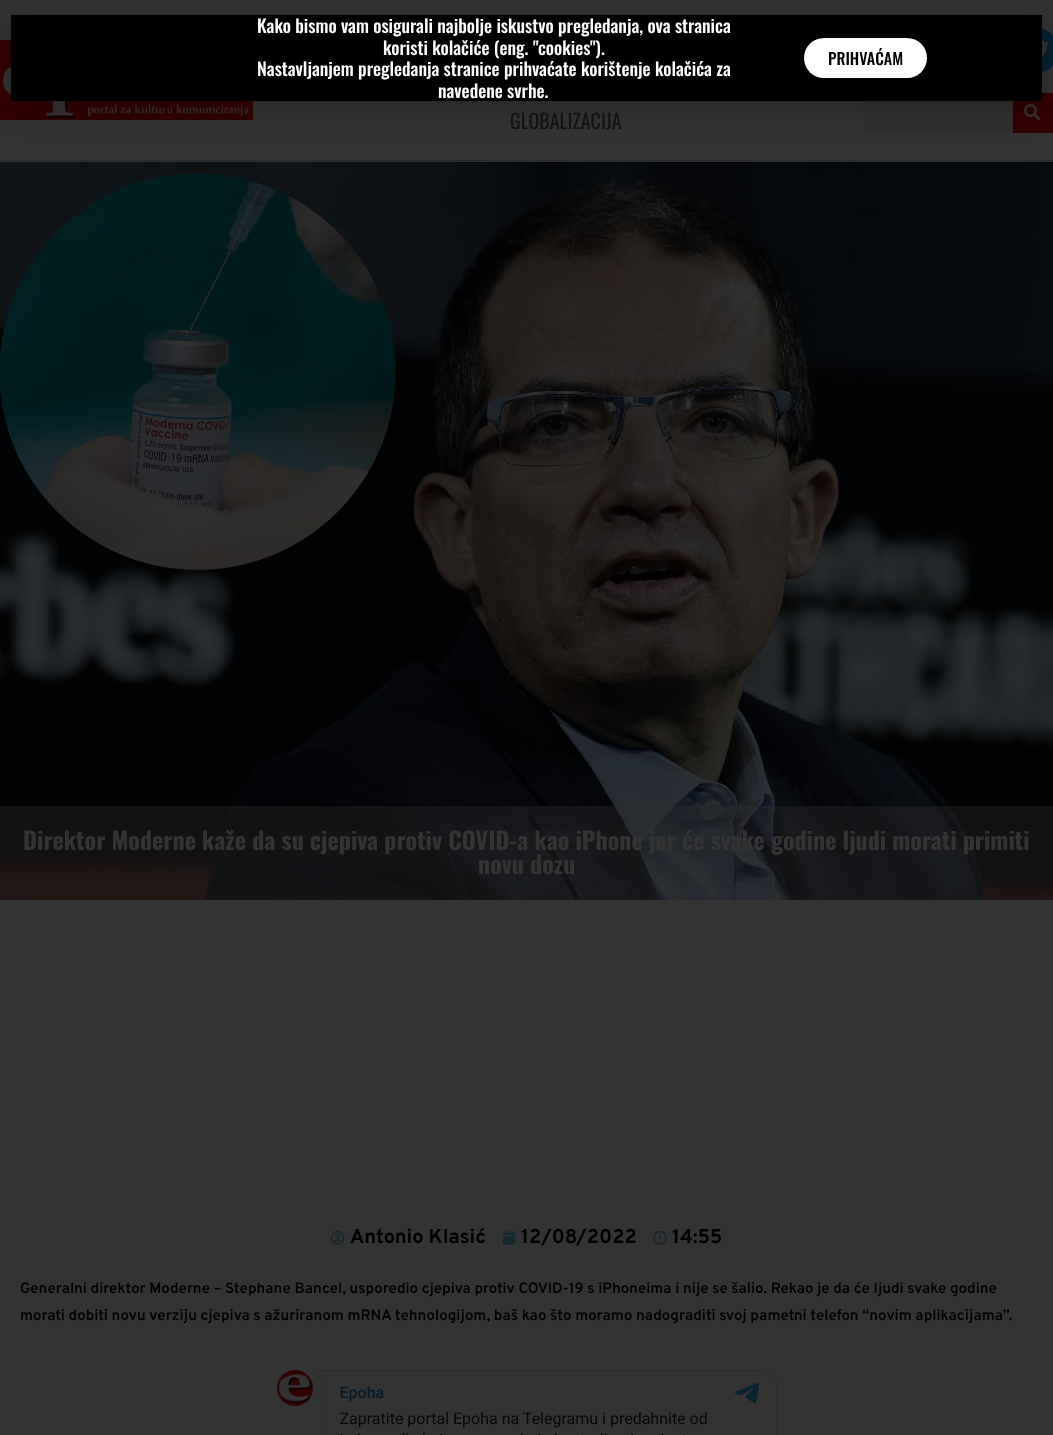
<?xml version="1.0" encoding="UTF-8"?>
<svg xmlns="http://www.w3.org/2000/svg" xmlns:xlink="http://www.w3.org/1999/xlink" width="1053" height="1435">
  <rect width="100%" height="100%" fill="#333333" />
  <image x="0" y="40" width="253" height="80" xlink:href="image1.png" />
  <circle cx="1036.5" cy="50.5" r="22.5" fill="#062030" />
  <image x="1042" y="40" width="8" height="17" xlink:href="image2.png" />
  <rect x="863" y="93" width="190" height="40" rx="1" fill="#303031" />
  <path d="M 1013 93 h 39 c 0.5 0 1 0.5 1 1 v 38 c 0 0.5 -0.5 1 -1 1 h -39 z" fill="#330000" />
  <image x="1024" y="104" width="16" height="16" xlink:href="image3.png" />
  <rect x="10" y="20" width="1037" height="92" fill="#000000" fill-opacity="0.2" filter="blur(11.5px)" />
  <rect x="11" y="15" width="1031" height="86" fill="#000000" />
  <rect x="804" y="38" width="123" height="40" rx="20" fill="#ffffff" />
  <rect y="161" width="1053" height="1" fill="#303030" />
  <rect y="160" width="1053" height="1" fill="#2a2a2a" />
  <image x="0" y="162" width="1053" height="738" xlink:href="image4.png" />
  <rect y="806" width="1053" height="94" fill="#2f2d2d" fill-opacity="0.37" />
  <image x="331" y="1231" width="14" height="14" xlink:href="image5.png" />
  <image x="503" y="1230" width="13" height="15" xlink:href="image6.png" />
  <image x="653" y="1231" width="14" height="14" xlink:href="image7.png" />
  <image x="277" y="1370" width="500" height="65" xlink:href="image8.png" />
  <text x="257" y="33" style="font-family: Oswald; font-size: 18px; font-weight: 500; fill: #ffffff">Kako bismo vam osigurali najbolje iskustvo pregledanja, ova stranica</text>
  <text x="383" y="55" style="font-family: Oswald; font-size: 18px; font-weight: 500; fill: #ffffff">koristi kolačiće (eng. "cookies").</text>
  <text x="257" y="76" style="font-family: Oswald; font-size: 18px; font-weight: 500; fill: #ffffff">Nastavljanjem pregledanja stranice prihvaćate korištenje kolačića za</text>
  <text x="438" y="98" style="font-family: Oswald; font-size: 18px; font-weight: 500; fill: #ffffff">navedene svrhe.</text>
  <text x="828" y="65" style="font-family: Oswald; font-size: 16px; font-weight: 500; fill: #000000">PRIHVAĆAM</text>
  <text x="510" y="129" style="font-family: Oswald; font-size: 20px; fill: #111213">GLOBALIZACIJA</text>
  <text x="23" y="850" style="font-family: Oswald; font-size: 24px; font-weight: bold; fill: #333333">Direktor Moderne kaže da su cjepiva protiv COVID-a kao iPhone jer će svake godine ljudi morati primiti</text>
  <text x="478" y="874" style="font-family: Oswald; font-size: 24px; font-weight: bold; fill: #333333">novu dozu</text>
  <text x="350" y="1243" style="font-family: Overpass; font-size: 20px; font-weight: bold; fill: #000000">Antonio Klasić</text>
  <text x="521" y="1243" style="font-family: Overpass; font-size: 20px; font-weight: bold; fill: #000000">12/08/2022</text>
  <text x="672" y="1243" style="font-family: Overpass; font-size: 20px; font-weight: bold; fill: #000000">14:55</text>
  <text x="20" y="1293" style="font-family: Overpass; font-size: 15px; font-weight: 600; fill: #000000">Generalni direktor Moderne – Stephane Bancel, usporedio cjepiva protiv COVID-19 s iPhoneima i nije se šalio. Rekao je da će ljudi svake godine</text>
  <text x="20" y="1320" style="font-family: Overpass; font-size: 15px; font-weight: 600; fill: #000000">morati dobiti novu verziju cjepiva s ažuriranom mRNA tehnologijom, baš kao što moramo nadograditi svoj pametni telefon “novim aplikacijama”.</text>
</svg>
